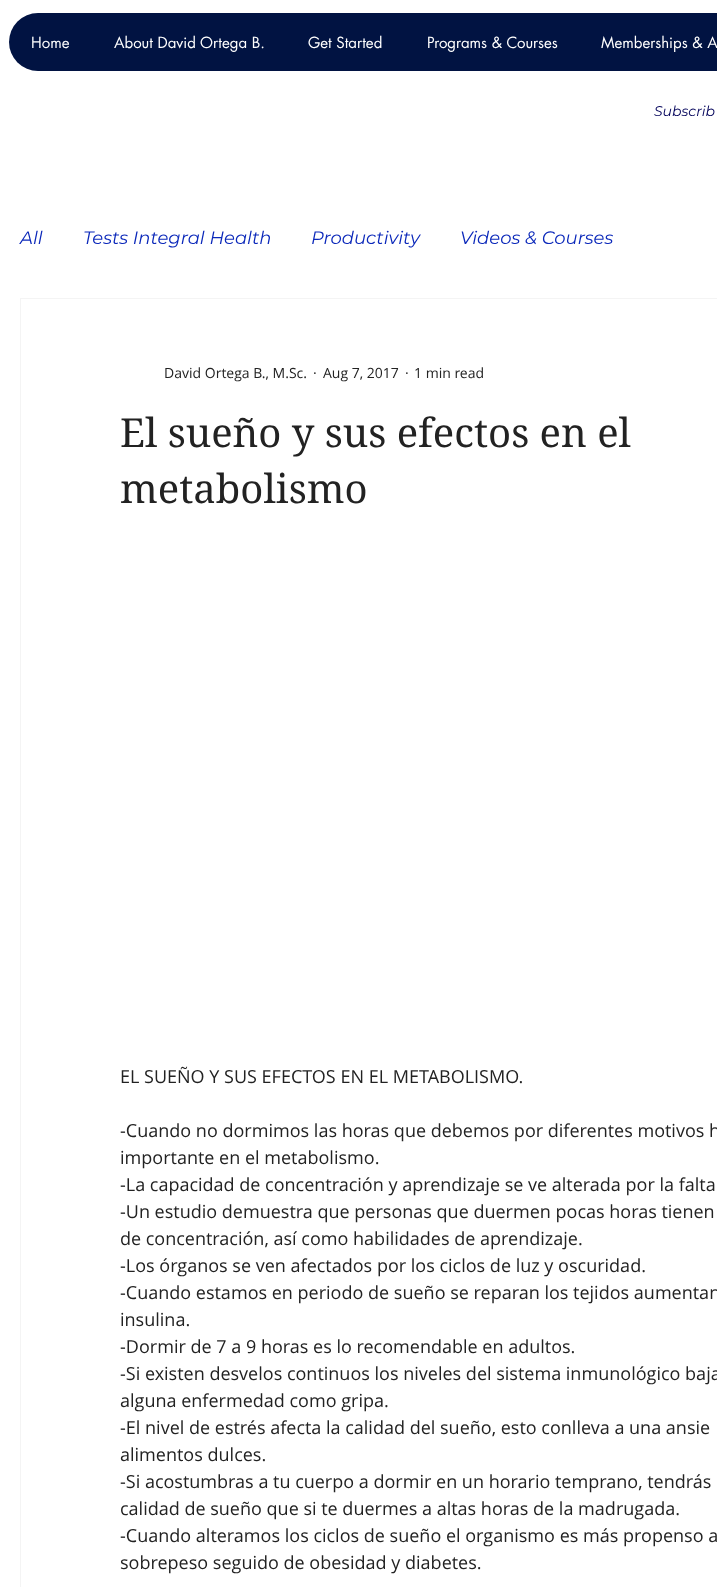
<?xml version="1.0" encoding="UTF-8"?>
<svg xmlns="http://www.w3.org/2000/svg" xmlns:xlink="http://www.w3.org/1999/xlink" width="717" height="1587">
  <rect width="100%" height="100%" fill="#ffffff" />
  <rect x="9" y="13" width="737" height="58" rx="29" fill="#011342" />
  <rect x="20.5" y="298.5" width="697" height="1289" fill="none" stroke="#f4f4f4" />
  <text x="31" y="48" style="font-family: futura; font-size: 15px; fill: #ffffff">Home</text>
  <text x="114" y="48" style="font-family: futura; font-size: 15px; fill: #ffffff">About David Ortega B.</text>
  <text x="308" y="48" style="font-family: futura; font-size: 15px; fill: #ffffff">Get Started</text>
  <text x="427" y="48" style="font-family: futura; font-size: 15px; fill: #ffffff">Programs &amp; Courses</text>
  <text x="601" y="48" style="font-family: futura; font-size: 15px; fill: #ffffff">Memberships &amp; A</text>
  <text x="654" y="116" style="font-family: Montserrat; font-size: 14px; font-style: italic; fill: #000059">Subscrib</text>
  <text x="20" y="244" style="font-family: Montserrat; font-size: 18px; font-style: italic; fill: #0b28ba">All</text>
  <text x="83" y="244" style="font-family: Montserrat; font-size: 18px; font-style: italic; fill: #0b28ba">Tests Integral Health</text>
  <text x="311" y="244" style="font-family: Montserrat; font-size: 18px; font-style: italic; fill: #0b28ba">Productivity</text>
  <text x="460" y="244" style="font-family: Montserrat; font-size: 18px; font-style: italic; fill: #0b28ba">Videos &amp; Courses</text>
  <text x="164" y="378" style="font-family: Open Sans; font-size: 14px; fill: #222222">David Ortega B., M.Sc.</text>
  <text x="313" y="378" style="font-family: Open Sans; font-size: 14px; fill: #222222">·</text>
  <text x="323" y="378" style="font-family: Open Sans; font-size: 14px; fill: #222222">Aug 7, 2017</text>
  <text x="405" y="378" style="font-family: Open Sans; font-size: 14px; fill: #222222">·</text>
  <text x="414" y="378" style="font-family: Open Sans; font-size: 14px; fill: #222222">1 min read</text>
  <text x="120" y="447" style="font-family: 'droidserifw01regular'; font-size: 40px; fill: #222222">El sueño y sus efectos en el</text>
  <text x="120" y="503" style="font-family: 'droidserifw01regular'; font-size: 40px; fill: #222222">metabolismo</text>
  <text x="120" y="1083" style="font-family: Open Sans; font-size: 18px; fill: #222222">EL SUEÑO Y SUS EFECTOS EN EL METABOLISMO.</text>
  <text x="120" y="1137" style="font-family: Open Sans; font-size: 18px; fill: #222222">-Cuando no dormimos las horas que debemos por diferentes motivos h</text>
  <text x="120" y="1164" style="font-family: Open Sans; font-size: 18px; fill: #222222">importante en el metabolismo.</text>
  <text x="120" y="1191" style="font-family: Open Sans; font-size: 18px; fill: #222222">-La capacidad de concentración y aprendizaje se ve alterada por la falta</text>
  <text x="120" y="1218" style="font-family: Open Sans; font-size: 18px; fill: #222222">-Un estudio demuestra que personas que duermen pocas horas tienen</text>
  <text x="120" y="1245" style="font-family: Open Sans; font-size: 18px; fill: #222222">de concentración, así como habilidades de aprendizaje.</text>
  <text x="120" y="1272" style="font-family: Open Sans; font-size: 18px; fill: #222222">-Los órganos se ven afectados por los ciclos de luz y oscuridad.</text>
  <text x="120" y="1299" style="font-family: Open Sans; font-size: 18px; fill: #222222">-Cuando estamos en periodo de sueño se reparan los tejidos aumentan</text>
  <text x="120" y="1326" style="font-family: Open Sans; font-size: 18px; fill: #222222">insulina.</text>
  <text x="120" y="1353" style="font-family: Open Sans; font-size: 18px; fill: #222222">-Dormir de 7 a 9 horas es lo recomendable en adultos.</text>
  <text x="120" y="1380" style="font-family: Open Sans; font-size: 18px; fill: #222222">-Si existen desvelos continuos los niveles del sistema inmunológico baja</text>
  <text x="120" y="1407" style="font-family: Open Sans; font-size: 18px; fill: #222222">alguna enfermedad como gripa.</text>
  <text x="120" y="1434" style="font-family: Open Sans; font-size: 18px; fill: #222222">-El nivel de estrés afecta la calidad del sueño, esto conlleva a una ansie</text>
  <text x="120" y="1461" style="font-family: Open Sans; font-size: 18px; fill: #222222">alimentos dulces.</text>
  <text x="120" y="1488" style="font-family: Open Sans; font-size: 18px; fill: #222222">-Si acostumbras a tu cuerpo a dormir en un horario temprano, tendrás</text>
  <text x="120" y="1515" style="font-family: Open Sans; font-size: 18px; fill: #222222">calidad de sueño que si te duermes a altas horas de la madrugada.</text>
  <text x="120" y="1542" style="font-family: Open Sans; font-size: 18px; fill: #222222">-Cuando alteramos los ciclos de sueño el organismo es más propenso a</text>
  <text x="120" y="1569" style="font-family: Open Sans; font-size: 18px; fill: #222222">sobrepeso seguido de obesidad y diabetes.</text>
</svg>
